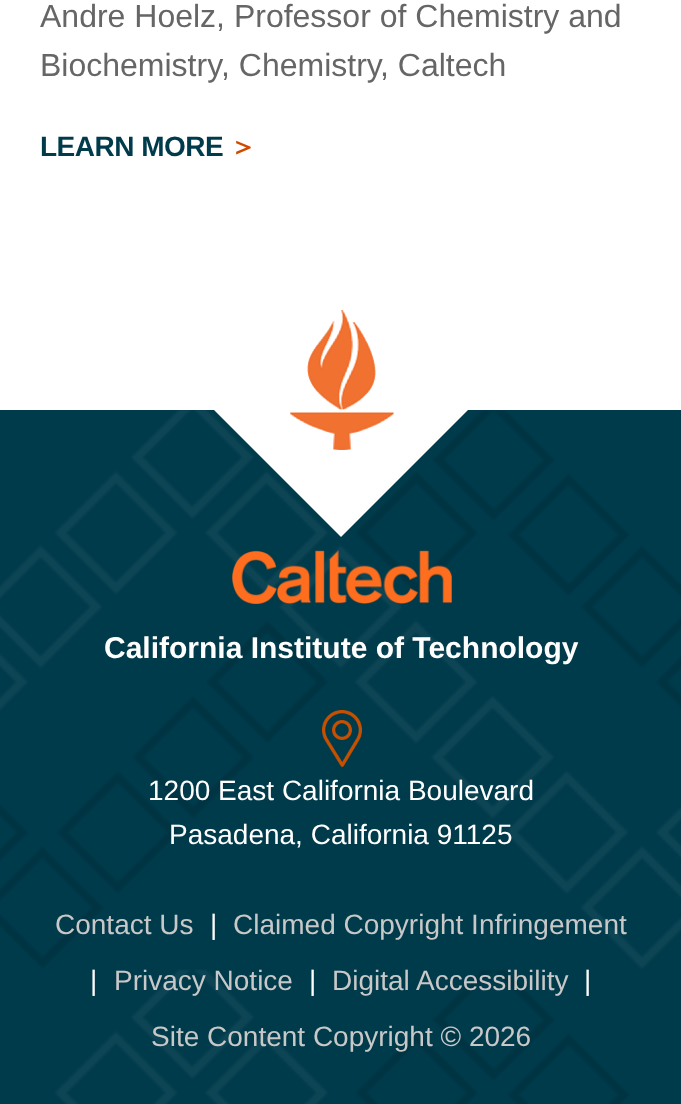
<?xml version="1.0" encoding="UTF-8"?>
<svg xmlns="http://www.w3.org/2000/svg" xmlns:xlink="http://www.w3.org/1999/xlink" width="681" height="1104">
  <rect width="100%" height="100%" fill="#ffffff" />
  <rect y="410" width="681" height="694" fill="#003b4c" />
  <image x="0" y="410" width="681" height="694" xlink:href="image1.png" />
  <path d="M 341 283 l 127 127 l -127 127 l -127 -127 z" fill="#ffffff" />
  <image x="290" y="310" width="104" height="140" xlink:href="image2.png" />
  <image x="232" y="550" width="220" height="54" xlink:href="image3.png" />
  <image x="322" y="710" width="40" height="58" xlink:href="image4.png" />
  <text x="40" y="27" style="font-family: Liberation Sans; font-size: 32px; fill: #666666">Andre Hoelz, Professor of Chemistry and</text>
  <text x="40" y="76" style="font-family: Liberation Sans; font-size: 32px; fill: #666666">Biochemistry</text>
  <text x="221" y="76" style="font-family: Liberation Sans; font-size: 32px; fill: #666666">, Chemistry</text>
  <text x="380" y="76" style="font-family: Liberation Sans; font-size: 32px; fill: #666666">, Caltech</text>
  <text x="40" y="156" style="font-family: Liberation Sans; font-size: 28px; font-weight: bold; letter-spacing: -0.5px; fill: #003b4c">LEARN MORE</text>
  <text x="229" y="156" style="font-family: WenQuanYi Zen Hei; font-size: 28px; font-weight: bold; letter-spacing: -0.5px; fill: #d14900">＞</text>
  <text x="104" y="658" style="font-family: Liberation Sans; font-size: 30px; font-weight: bold; fill: #ffffff">California Institute of Technology</text>
  <text x="148" y="800" style="font-family: Liberation Sans; font-size: 28px; fill: #ffffff">1200 East California Boulevard</text>
  <text x="169" y="844" style="font-family: Liberation Sans; font-size: 28px; fill: #ffffff">Pasadena, California 91125</text>
  <text x="55" y="934" style="font-family: Liberation Sans; font-size: 28px; fill: #c8c8c8">Contact Us</text>
  <text x="210" y="934" style="font-family: Liberation Sans; font-size: 28px; fill: #ffffff">|</text>
  <text x="233" y="934" style="font-family: Liberation Sans; font-size: 28px; fill: #c8c8c8">Claimed Copyright Infringement</text>
  <text x="90" y="990" style="font-family: Liberation Sans; font-size: 28px; fill: #ffffff">|</text>
  <text x="114" y="990" style="font-family: Liberation Sans; font-size: 28px; fill: #c8c8c8">Privacy Notice</text>
  <text x="309" y="990" style="font-family: Liberation Sans; font-size: 28px; fill: #ffffff">|</text>
  <text x="332" y="990" style="font-family: Liberation Sans; font-size: 28px; fill: #c8c8c8">Digital Accessibility</text>
  <text x="584" y="990" style="font-family: Liberation Sans; font-size: 28px; fill: #ffffff">|</text>
  <text x="151" y="1046" style="font-family: Liberation Sans; font-size: 28px; fill: #c8c8c8">Site Content Copyright © 2026</text>
</svg>
